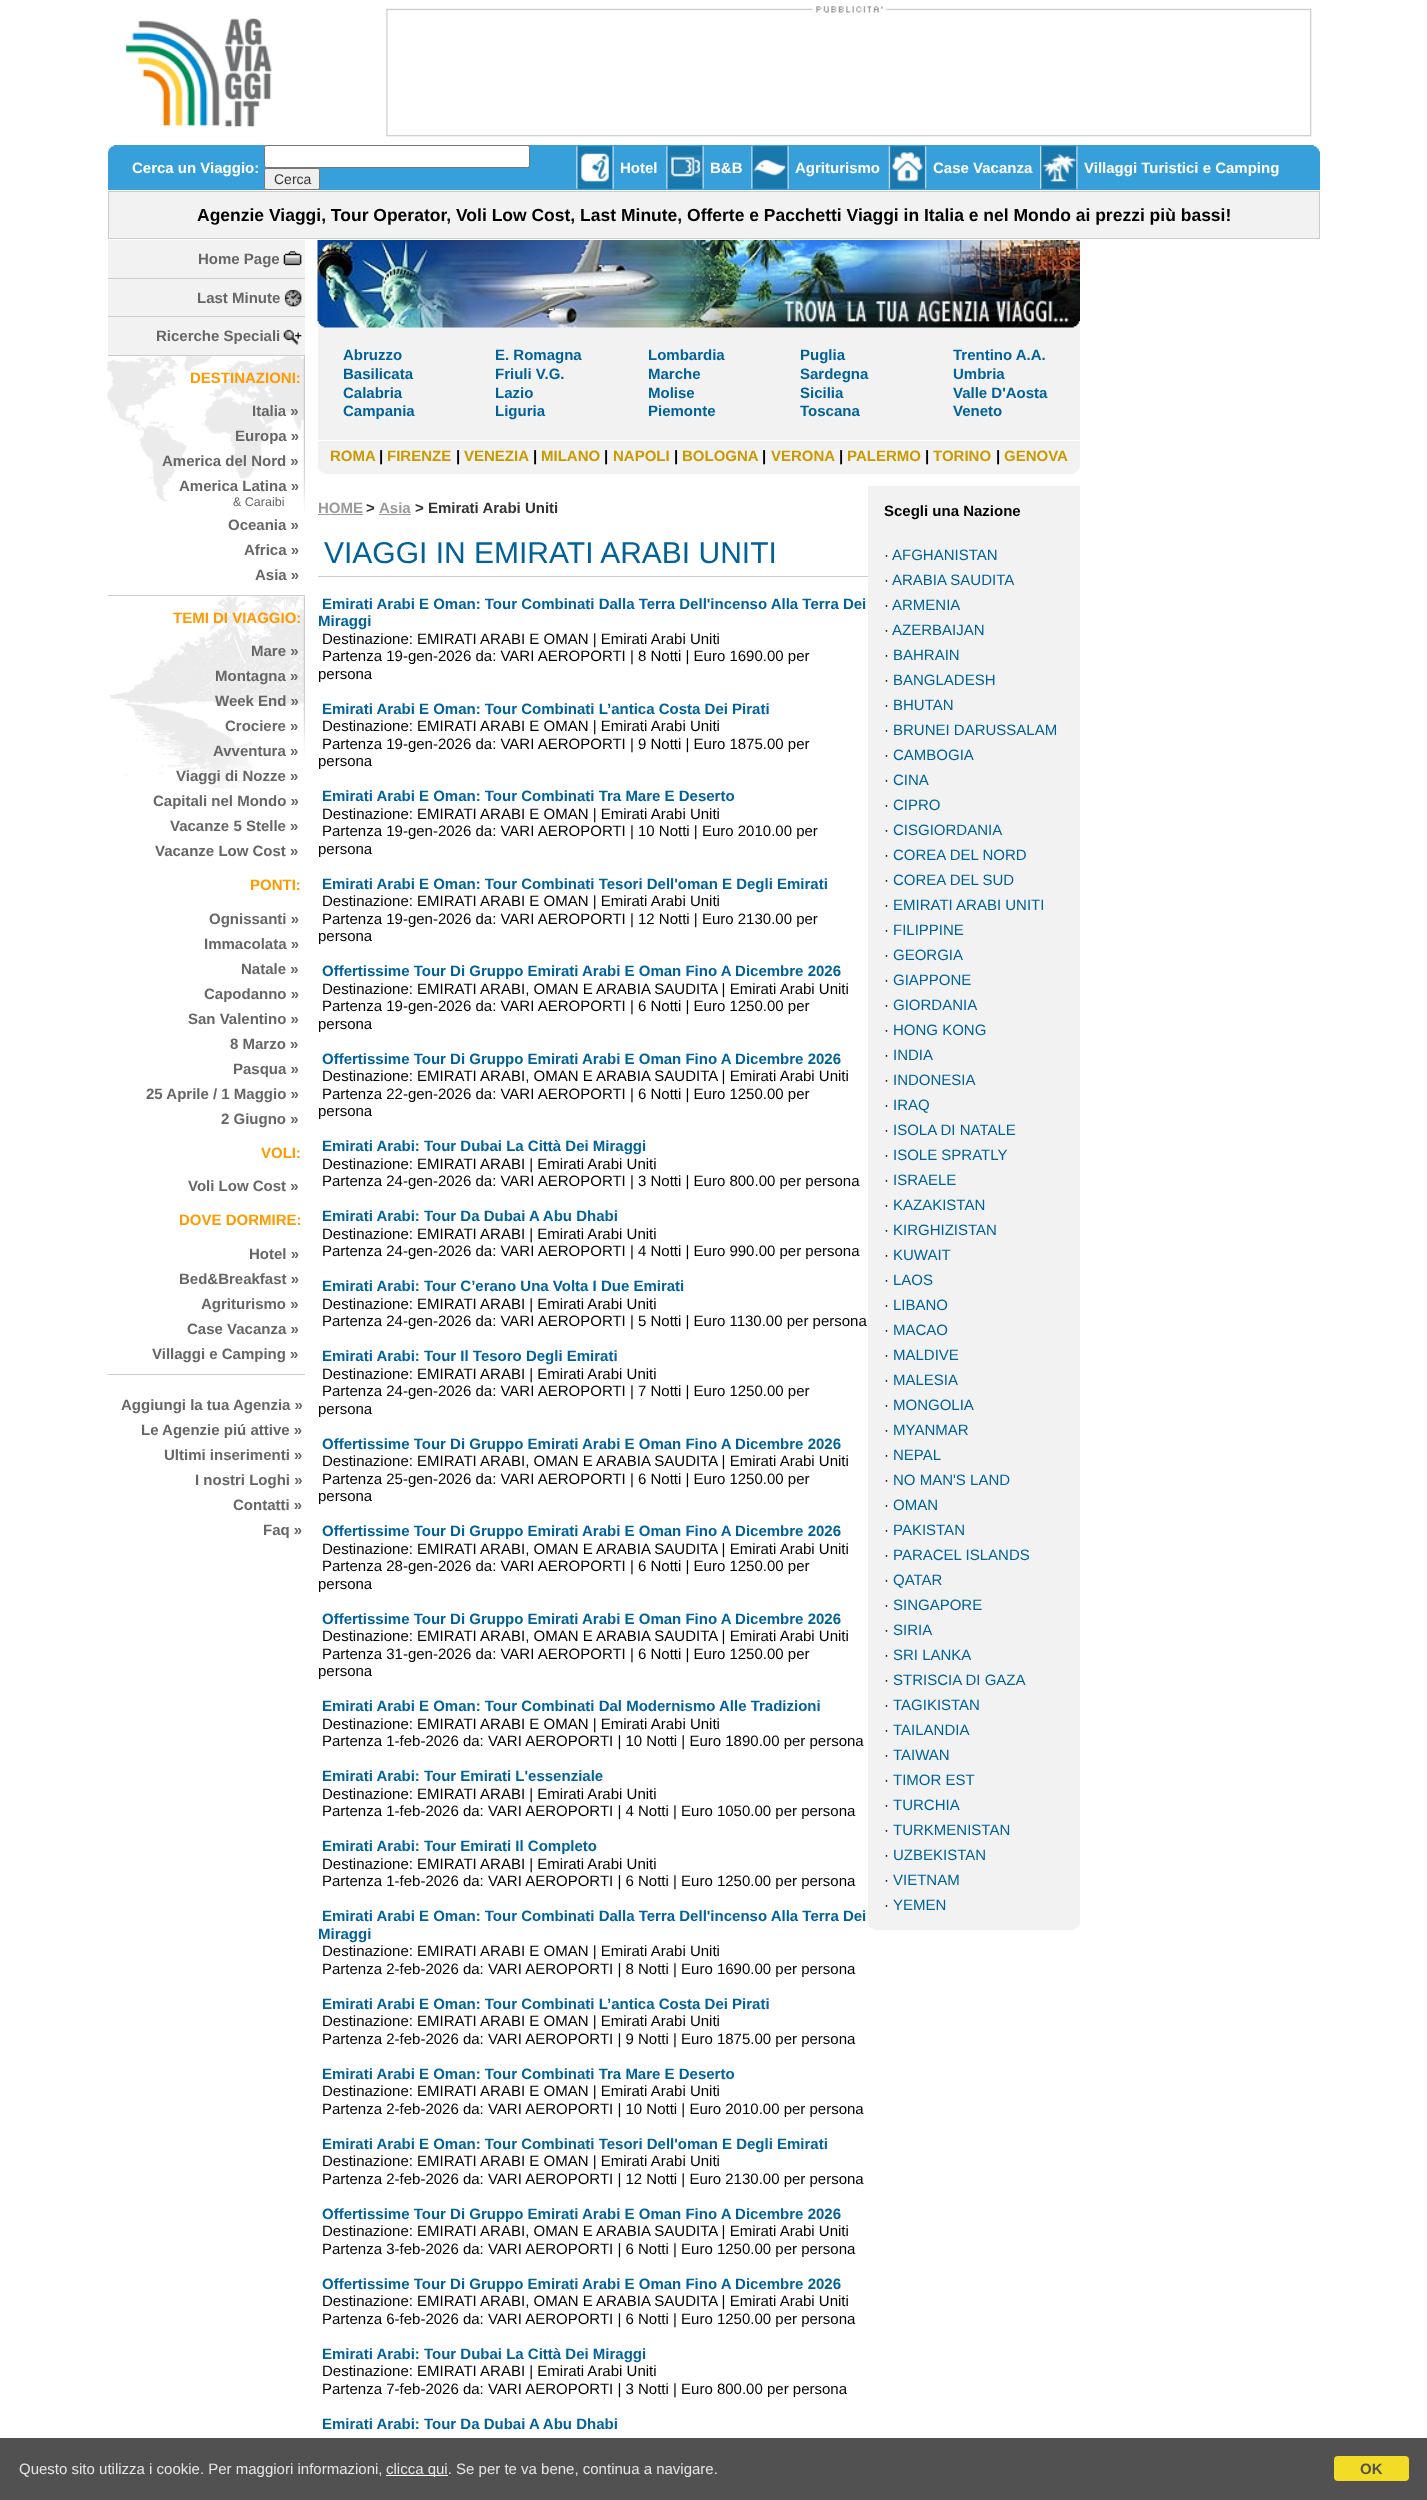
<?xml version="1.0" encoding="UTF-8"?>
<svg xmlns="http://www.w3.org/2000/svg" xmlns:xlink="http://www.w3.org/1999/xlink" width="1427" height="2500">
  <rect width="100%" height="100%" fill="#ffffff" />
  <image x="126" y="18" width="146" height="109" xlink:href="image1.png" />
  <image x="386" y="6" width="926" height="131" xlink:href="image2.png" />
  <rect x="108" y="145" width="1212" height="45" fill="#37a0da" />
  <image x="108" y="145" width="6" height="7" xlink:href="image3.png" />
  <image x="1313" y="145" width="7" height="7" xlink:href="image4.png" />
  <image x="576" y="146" width="38" height="43" xlink:href="image5.png" />
  <image x="666" y="146" width="38" height="43" xlink:href="image6.png" />
  <image x="751" y="146" width="38" height="43" xlink:href="image7.png" />
  <image x="888" y="146" width="39" height="43" xlink:href="image8.png" />
  <image x="1040" y="146" width="38" height="43" xlink:href="image9.png" />
  <rect x="264.5" y="145.5" width="265" height="22" rx="2" fill="#ffffff" stroke="#767676" />
  <rect x="264.5" y="168.5" width="55" height="21" rx="2" fill="#efefef" stroke="#767676" />
  <rect x="108.5" y="191.5" width="1211" height="47" fill="#f2f2f2" stroke="#cccccc" />
  <rect x="108" y="240" width="197" height="38" fill="#f2f2f2" />
  <image x="283" y="251" width="19" height="15" xlink:href="image10.png" />
  <rect x="108" y="278" width="197" height="1" fill="#cccccc" />
  <rect x="108" y="279" width="197" height="76" fill="#f2f2f2" />
  <image x="284" y="289" width="18" height="18" xlink:href="image11.png" />
  <rect x="108" y="316" width="197" height="1" fill="#cccccc" />
  <image x="283" y="329" width="19" height="17" xlink:href="image12.png" />
  <rect x="108" y="355" width="197" height="1" fill="#cccccc" />
  <image x="107" y="356" width="198" height="155" xlink:href="image13.png" />
  <rect x="108" y="595" width="197" height="1" fill="#cccccc" />
  <image x="110" y="596" width="195" height="193" xlink:href="image14.png" />
  <rect x="108" y="1374" width="197" height="1" fill="#cccccc" />
  <rect x="318" y="327" width="762" height="113" fill="#f2f2f2" />
  <image x="317" y="240" width="763" height="88" xlink:href="image15.png" />
  <rect x="318" y="441" width="762" height="33" fill="#f2f2f2" />
  <image x="317" y="466" width="763" height="8" xlink:href="image16.png" />
  <rect x="318" y="514" width="45" height="1" fill="#999999" />
  <rect x="379" y="514" width="32" height="1" fill="#999999" />
  <rect x="318" y="576" width="550" height="1" fill="#cccccc" />
  <rect x="868" y="486" width="212" height="1438" fill="#f2f2f2" />
  <image x="868" y="1924" width="212" height="6" xlink:href="image17.png" />
  <rect y="2438" width="1427" height="62" fill="#333333" fill-opacity="0.85" />
  <rect x="386" y="2475" width="62" height="1" fill="#ffffff" />
  <rect x="1334" y="2456" width="75" height="25" rx="4" fill="#f3dc26" />
  <text x="132" y="173" style="font-family: Liberation Sans; font-size: 15px; font-weight: bold; fill: #ffffff">Cerca un Viaggio:</text>
  <text x="620" y="173" style="font-family: Liberation Sans; font-size: 15px; font-weight: bold; fill: #ffffff">Hotel</text>
  <text x="710" y="173" style="font-family: Liberation Sans; font-size: 15px; font-weight: bold; fill: #ffffff">B&amp;B</text>
  <text x="795" y="173" style="font-family: Liberation Sans; font-size: 15px; font-weight: bold; fill: #ffffff">Agriturismo</text>
  <text x="933" y="173" style="font-family: Liberation Sans; font-size: 15px; font-weight: bold; fill: #ffffff">Case Vacanza</text>
  <text x="1084" y="173" style="font-family: Liberation Sans; font-size: 15px; font-weight: bold; fill: #ffffff">Villaggi Turistici e Camping</text>
  <text x="274" y="184" style="font-family: Liberation Sans; font-size: 14px; fill: #333333">Cerca</text>
  <text x="197" y="221" style="font-family: Liberation Sans; font-size: 17.5px; font-weight: bold; fill: #000000">Agenzie Viaggi, Tour Operator, Voli Low Cost, Last Minute, Offerte e Pacchetti Viaggi in Italia e nel Mondo ai prezzi più bassi!</text>
  <text x="198" y="264" style="font-family: Liberation Sans; font-size: 15px; font-weight: bold; fill: #666666">Home Page</text>
  <text x="197" y="303" style="font-family: Liberation Sans; font-size: 15px; font-weight: bold; fill: #666666">Last Minute</text>
  <text x="156" y="341" style="font-family: Liberation Sans; font-size: 15px; font-weight: bold; fill: #666666">Ricerche Speciali</text>
  <text x="190" y="383" style="font-family: Liberation Sans; font-size: 15px; font-weight: bold; fill: #ff9900">DESTINAZIONI:</text>
  <text x="252" y="416" style="font-family: Liberation Sans; font-size: 15px; font-weight: bold; fill: #666666">Italia »</text>
  <text x="235" y="441" style="font-family: Liberation Sans; font-size: 15px; font-weight: bold; fill: #666666">Europa »</text>
  <text x="162" y="466" style="font-family: Liberation Sans; font-size: 15px; font-weight: bold; fill: #666666">America del Nord »</text>
  <text x="179" y="491" style="font-family: Liberation Sans; font-size: 15px; font-weight: bold; fill: #666666">America Latina »</text>
  <text x="233" y="506" style="font-family: Liberation Sans; font-size: 12.5px; fill: #666666">&amp; Caraibi</text>
  <text x="228" y="530" style="font-family: Liberation Sans; font-size: 15px; font-weight: bold; fill: #666666">Oceania »</text>
  <text x="244" y="555" style="font-family: Liberation Sans; font-size: 15px; font-weight: bold; fill: #666666">Africa »</text>
  <text x="255" y="580" style="font-family: Liberation Sans; font-size: 15px; font-weight: bold; fill: #666666">Asia »</text>
  <text x="173" y="623" style="font-family: Liberation Sans; font-size: 15px; font-weight: bold; fill: #ff9900">TEMI DI VIAGGIO:</text>
  <text x="251" y="656" style="font-family: Liberation Sans; font-size: 15px; font-weight: bold; fill: #666666">Mare »</text>
  <text x="215" y="681" style="font-family: Liberation Sans; font-size: 15px; font-weight: bold; fill: #666666">Montagna »</text>
  <text x="215" y="706" style="font-family: Liberation Sans; font-size: 15px; font-weight: bold; fill: #666666">Week End »</text>
  <text x="225" y="731" style="font-family: Liberation Sans; font-size: 15px; font-weight: bold; fill: #666666">Crociere »</text>
  <text x="213" y="756" style="font-family: Liberation Sans; font-size: 15px; font-weight: bold; fill: #666666">Avventura »</text>
  <text x="176" y="781" style="font-family: Liberation Sans; font-size: 15px; font-weight: bold; fill: #666666">Viaggi di Nozze »</text>
  <text x="153" y="806" style="font-family: Liberation Sans; font-size: 15px; font-weight: bold; fill: #666666">Capitali nel Mondo »</text>
  <text x="170" y="831" style="font-family: Liberation Sans; font-size: 15px; font-weight: bold; fill: #666666">Vacanze 5 Stelle »</text>
  <text x="155" y="856" style="font-family: Liberation Sans; font-size: 15px; font-weight: bold; fill: #666666">Vacanze Low Cost »</text>
  <text x="250" y="890" style="font-family: Liberation Sans; font-size: 15px; font-weight: bold; fill: #ff9900">PONTI:</text>
  <text x="209" y="924" style="font-family: Liberation Sans; font-size: 15px; font-weight: bold; fill: #666666">Ognissanti »</text>
  <text x="204" y="949" style="font-family: Liberation Sans; font-size: 15px; font-weight: bold; fill: #666666">Immacolata »</text>
  <text x="241" y="974" style="font-family: Liberation Sans; font-size: 15px; font-weight: bold; fill: #666666">Natale »</text>
  <text x="204" y="999" style="font-family: Liberation Sans; font-size: 15px; font-weight: bold; fill: #666666">Capodanno »</text>
  <text x="188" y="1024" style="font-family: Liberation Sans; font-size: 15px; font-weight: bold; fill: #666666">San Valentino »</text>
  <text x="230" y="1049" style="font-family: Liberation Sans; font-size: 15px; font-weight: bold; fill: #666666">8 Marzo »</text>
  <text x="233" y="1074" style="font-family: Liberation Sans; font-size: 15px; font-weight: bold; fill: #666666">Pasqua »</text>
  <text x="146" y="1099" style="font-family: Liberation Sans; font-size: 15px; font-weight: bold; fill: #666666">25 Aprile / 1 Maggio »</text>
  <text x="221" y="1124" style="font-family: Liberation Sans; font-size: 15px; font-weight: bold; fill: #666666">2 Giugno »</text>
  <text x="261" y="1158" style="font-family: Liberation Sans; font-size: 15px; font-weight: bold; fill: #ff9900">VOLI:</text>
  <text x="188" y="1191" style="font-family: Liberation Sans; font-size: 15px; font-weight: bold; fill: #666666">Voli Low Cost »</text>
  <text x="179" y="1225" style="font-family: Liberation Sans; font-size: 15px; font-weight: bold; fill: #ff9900">DOVE DORMIRE:</text>
  <text x="249" y="1259" style="font-family: Liberation Sans; font-size: 15px; font-weight: bold; fill: #666666">Hotel »</text>
  <text x="179" y="1284" style="font-family: Liberation Sans; font-size: 15px; font-weight: bold; fill: #666666">Bed&amp;Breakfast »</text>
  <text x="201" y="1309" style="font-family: Liberation Sans; font-size: 15px; font-weight: bold; fill: #666666">Agriturismo »</text>
  <text x="187" y="1334" style="font-family: Liberation Sans; font-size: 15px; font-weight: bold; fill: #666666">Case Vacanza »</text>
  <text x="152" y="1359" style="font-family: Liberation Sans; font-size: 15px; font-weight: bold; fill: #666666">Villaggi e Camping »</text>
  <text x="121" y="1410" style="font-family: Liberation Sans; font-size: 15px; font-weight: bold; fill: #666666">Aggiungi la tua Agenzia »</text>
  <text x="141" y="1435" style="font-family: Liberation Sans; font-size: 15px; font-weight: bold; fill: #666666">Le Agenzie piú attive »</text>
  <text x="164" y="1460" style="font-family: Liberation Sans; font-size: 15px; font-weight: bold; fill: #666666">Ultimi inserimenti »</text>
  <text x="195" y="1485" style="font-family: Liberation Sans; font-size: 15px; font-weight: bold; fill: #666666">I nostri Loghi »</text>
  <text x="233" y="1510" style="font-family: Liberation Sans; font-size: 15px; font-weight: bold; fill: #666666">Contatti »</text>
  <text x="263" y="1535" style="font-family: Liberation Sans; font-size: 15px; font-weight: bold; fill: #666666">Faq »</text>
  <text x="343" y="360" style="font-family: Liberation Sans; font-size: 15px; font-weight: bold; fill: #006299">Abruzzo</text>
  <text x="343" y="379" style="font-family: Liberation Sans; font-size: 15px; font-weight: bold; fill: #006299">Basilicata</text>
  <text x="343" y="398" style="font-family: Liberation Sans; font-size: 15px; font-weight: bold; fill: #006299">Calabria</text>
  <text x="343" y="416" style="font-family: Liberation Sans; font-size: 15px; font-weight: bold; fill: #006299">Campania</text>
  <text x="495" y="360" style="font-family: Liberation Sans; font-size: 15px; font-weight: bold; fill: #006299">E. Romagna</text>
  <text x="495" y="379" style="font-family: Liberation Sans; font-size: 15px; font-weight: bold; fill: #006299">Friuli V.G.</text>
  <text x="495" y="398" style="font-family: Liberation Sans; font-size: 15px; font-weight: bold; fill: #006299">Lazio</text>
  <text x="495" y="416" style="font-family: Liberation Sans; font-size: 15px; font-weight: bold; fill: #006299">Liguria</text>
  <text x="648" y="360" style="font-family: Liberation Sans; font-size: 15px; font-weight: bold; fill: #006299">Lombardia</text>
  <text x="648" y="379" style="font-family: Liberation Sans; font-size: 15px; font-weight: bold; fill: #006299">Marche</text>
  <text x="648" y="398" style="font-family: Liberation Sans; font-size: 15px; font-weight: bold; fill: #006299">Molise</text>
  <text x="648" y="416" style="font-family: Liberation Sans; font-size: 15px; font-weight: bold; fill: #006299">Piemonte</text>
  <text x="800" y="360" style="font-family: Liberation Sans; font-size: 15px; font-weight: bold; fill: #006299">Puglia</text>
  <text x="800" y="379" style="font-family: Liberation Sans; font-size: 15px; font-weight: bold; fill: #006299">Sardegna</text>
  <text x="800" y="398" style="font-family: Liberation Sans; font-size: 15px; font-weight: bold; fill: #006299">Sicilia</text>
  <text x="800" y="416" style="font-family: Liberation Sans; font-size: 15px; font-weight: bold; fill: #006299">Toscana</text>
  <text x="953" y="360" style="font-family: Liberation Sans; font-size: 15px; font-weight: bold; fill: #006299">Trentino A.A.</text>
  <text x="953" y="379" style="font-family: Liberation Sans; font-size: 15px; font-weight: bold; fill: #006299">Umbria</text>
  <text x="953" y="398" style="font-family: Liberation Sans; font-size: 15px; font-weight: bold; fill: #006299">Valle D'Aosta</text>
  <text x="953" y="416" style="font-family: Liberation Sans; font-size: 15px; font-weight: bold; fill: #006299">Veneto</text>
  <text x="330" y="461" style="font-family: Liberation Sans; font-size: 15px; font-weight: bold; fill: #ca9900">ROMA</text>
  <text x="379" y="461" style="font-family: Liberation Sans; font-size: 15px; font-weight: bold; fill: #000000">|</text>
  <text x="387" y="461" style="font-family: Liberation Sans; font-size: 15px; font-weight: bold; fill: #ca9900">FIRENZE</text>
  <text x="456" y="461" style="font-family: Liberation Sans; font-size: 15px; font-weight: bold; fill: #000000">|</text>
  <text x="464" y="461" style="font-family: Liberation Sans; font-size: 15px; font-weight: bold; fill: #ca9900">VENEZIA</text>
  <text x="533" y="461" style="font-family: Liberation Sans; font-size: 15px; font-weight: bold; fill: #000000">|</text>
  <text x="541" y="461" style="font-family: Liberation Sans; font-size: 15px; font-weight: bold; fill: #ca9900">MILANO</text>
  <text x="604" y="461" style="font-family: Liberation Sans; font-size: 15px; font-weight: bold; fill: #000000">|</text>
  <text x="613" y="461" style="font-family: Liberation Sans; font-size: 15px; font-weight: bold; fill: #ca9900">NAPOLI</text>
  <text x="674" y="461" style="font-family: Liberation Sans; font-size: 15px; font-weight: bold; fill: #000000">|</text>
  <text x="682" y="461" style="font-family: Liberation Sans; font-size: 15px; font-weight: bold; fill: #ca9900">BOLOGNA</text>
  <text x="762" y="461" style="font-family: Liberation Sans; font-size: 15px; font-weight: bold; fill: #000000">|</text>
  <text x="771" y="461" style="font-family: Liberation Sans; font-size: 15px; font-weight: bold; fill: #ca9900">VERONA</text>
  <text x="839" y="461" style="font-family: Liberation Sans; font-size: 15px; font-weight: bold; fill: #000000">|</text>
  <text x="847" y="461" style="font-family: Liberation Sans; font-size: 15px; font-weight: bold; fill: #ca9900">PALERMO</text>
  <text x="925" y="461" style="font-family: Liberation Sans; font-size: 15px; font-weight: bold; fill: #000000">|</text>
  <text x="933" y="461" style="font-family: Liberation Sans; font-size: 15px; font-weight: bold; fill: #ca9900">TORINO</text>
  <text x="996" y="461" style="font-family: Liberation Sans; font-size: 15px; font-weight: bold; fill: #000000">|</text>
  <text x="1004" y="461" style="font-family: Liberation Sans; font-size: 15px; font-weight: bold; fill: #ca9900">GENOVA</text>
  <text x="318" y="513" style="font-family: Liberation Sans; font-size: 15px; font-weight: bold; fill: #999999">HOME</text>
  <text x="366" y="513" style="font-family: Liberation Sans; font-size: 15px; font-weight: bold; fill: #333333">&gt;</text>
  <text x="379" y="513" style="font-family: Liberation Sans; font-size: 15px; font-weight: bold; fill: #999999">Asia</text>
  <text x="415" y="513" style="font-family: Liberation Sans; font-size: 15px; font-weight: bold; fill: #333333">&gt; Emirati Arabi Uniti</text>
  <text x="324" y="563" style="font-family: Liberation Sans; font-size: 30px; fill: #006299">VIAGGI IN EMIRATI ARABI UNITI</text>
  <text x="322" y="609" style="font-family: Liberation Sans; font-size: 15px; font-weight: bold; fill: #006299">Emirati Arabi E Oman: Tour Combinati Dalla Terra Dell'incenso Alla Terra Dei</text>
  <text x="318" y="626" style="font-family: Liberation Sans; font-size: 15px; font-weight: bold; fill: #006299">Miraggi</text>
  <text x="322" y="644" style="font-family: Liberation Sans; font-size: 15px; fill: #000000">Destinazione: EMIRATI ARABI E OMAN | Emirati Arabi Uniti</text>
  <text x="322" y="661" style="font-family: Liberation Sans; font-size: 15px; fill: #000000">Partenza 19-gen-2026 da: VARI AEROPORTI | 8 Notti | Euro 1690.00 per</text>
  <text x="318" y="679" style="font-family: Liberation Sans; font-size: 15px; fill: #000000">persona</text>
  <text x="322" y="714" style="font-family: Liberation Sans; font-size: 15px; font-weight: bold; fill: #006299">Emirati Arabi E Oman: Tour Combinati L’antica Costa Dei Pirati</text>
  <text x="322" y="731" style="font-family: Liberation Sans; font-size: 15px; fill: #000000">Destinazione: EMIRATI ARABI E OMAN | Emirati Arabi Uniti</text>
  <text x="322" y="749" style="font-family: Liberation Sans; font-size: 15px; fill: #000000">Partenza 19-gen-2026 da: VARI AEROPORTI | 9 Notti | Euro 1875.00 per</text>
  <text x="318" y="766" style="font-family: Liberation Sans; font-size: 15px; fill: #000000">persona</text>
  <text x="322" y="801" style="font-family: Liberation Sans; font-size: 15px; font-weight: bold; fill: #006299">Emirati Arabi E Oman: Tour Combinati Tra Mare E Deserto</text>
  <text x="322" y="819" style="font-family: Liberation Sans; font-size: 15px; fill: #000000">Destinazione: EMIRATI ARABI E OMAN | Emirati Arabi Uniti</text>
  <text x="322" y="836" style="font-family: Liberation Sans; font-size: 15px; fill: #000000">Partenza 19-gen-2026 da: VARI AEROPORTI | 10 Notti | Euro 2010.00 per</text>
  <text x="318" y="854" style="font-family: Liberation Sans; font-size: 15px; fill: #000000">persona</text>
  <text x="322" y="889" style="font-family: Liberation Sans; font-size: 15px; font-weight: bold; fill: #006299">Emirati Arabi E Oman: Tour Combinati Tesori Dell'oman E Degli Emirati</text>
  <text x="322" y="906" style="font-family: Liberation Sans; font-size: 15px; fill: #000000">Destinazione: EMIRATI ARABI E OMAN | Emirati Arabi Uniti</text>
  <text x="322" y="924" style="font-family: Liberation Sans; font-size: 15px; fill: #000000">Partenza 19-gen-2026 da: VARI AEROPORTI | 12 Notti | Euro 2130.00 per</text>
  <text x="318" y="941" style="font-family: Liberation Sans; font-size: 15px; fill: #000000">persona</text>
  <text x="322" y="976" style="font-family: Liberation Sans; font-size: 15px; font-weight: bold; fill: #006299">Offertissime Tour Di Gruppo Emirati Arabi E Oman Fino A Dicembre 2026</text>
  <text x="322" y="994" style="font-family: Liberation Sans; font-size: 15px; fill: #000000">Destinazione: EMIRATI ARABI, OMAN E ARABIA SAUDITA | Emirati Arabi Uniti</text>
  <text x="322" y="1011" style="font-family: Liberation Sans; font-size: 15px; fill: #000000">Partenza 19-gen-2026 da: VARI AEROPORTI | 6 Notti | Euro 1250.00 per</text>
  <text x="318" y="1029" style="font-family: Liberation Sans; font-size: 15px; fill: #000000">persona</text>
  <text x="322" y="1064" style="font-family: Liberation Sans; font-size: 15px; font-weight: bold; fill: #006299">Offertissime Tour Di Gruppo Emirati Arabi E Oman Fino A Dicembre 2026</text>
  <text x="322" y="1081" style="font-family: Liberation Sans; font-size: 15px; fill: #000000">Destinazione: EMIRATI ARABI, OMAN E ARABIA SAUDITA | Emirati Arabi Uniti</text>
  <text x="322" y="1099" style="font-family: Liberation Sans; font-size: 15px; fill: #000000">Partenza 22-gen-2026 da: VARI AEROPORTI | 6 Notti | Euro 1250.00 per</text>
  <text x="318" y="1116" style="font-family: Liberation Sans; font-size: 15px; fill: #000000">persona</text>
  <text x="322" y="1151" style="font-family: Liberation Sans; font-size: 15px; font-weight: bold; fill: #006299">Emirati Arabi: Tour Dubai La Città Dei Miraggi</text>
  <text x="322" y="1169" style="font-family: Liberation Sans; font-size: 15px; fill: #000000">Destinazione: EMIRATI ARABI | Emirati Arabi Uniti</text>
  <text x="322" y="1186" style="font-family: Liberation Sans; font-size: 15px; fill: #000000">Partenza 24-gen-2026 da: VARI AEROPORTI | 3 Notti | Euro 800.00 per persona</text>
  <text x="322" y="1221" style="font-family: Liberation Sans; font-size: 15px; font-weight: bold; fill: #006299">Emirati Arabi: Tour Da Dubai A Abu Dhabi</text>
  <text x="322" y="1239" style="font-family: Liberation Sans; font-size: 15px; fill: #000000">Destinazione: EMIRATI ARABI | Emirati Arabi Uniti</text>
  <text x="322" y="1256" style="font-family: Liberation Sans; font-size: 15px; fill: #000000">Partenza 24-gen-2026 da: VARI AEROPORTI | 4 Notti | Euro 990.00 per persona</text>
  <text x="322" y="1291" style="font-family: Liberation Sans; font-size: 15px; font-weight: bold; fill: #006299">Emirati Arabi: Tour C’erano Una Volta I Due Emirati</text>
  <text x="322" y="1309" style="font-family: Liberation Sans; font-size: 15px; fill: #000000">Destinazione: EMIRATI ARABI | Emirati Arabi Uniti</text>
  <text x="322" y="1326" style="font-family: Liberation Sans; font-size: 15px; fill: #000000">Partenza 24-gen-2026 da: VARI AEROPORTI | 5 Notti | Euro 1130.00 per persona</text>
  <text x="322" y="1361" style="font-family: Liberation Sans; font-size: 15px; font-weight: bold; fill: #006299">Emirati Arabi: Tour Il Tesoro Degli Emirati</text>
  <text x="322" y="1379" style="font-family: Liberation Sans; font-size: 15px; fill: #000000">Destinazione: EMIRATI ARABI | Emirati Arabi Uniti</text>
  <text x="322" y="1396" style="font-family: Liberation Sans; font-size: 15px; fill: #000000">Partenza 24-gen-2026 da: VARI AEROPORTI | 7 Notti | Euro 1250.00 per</text>
  <text x="318" y="1414" style="font-family: Liberation Sans; font-size: 15px; fill: #000000">persona</text>
  <text x="322" y="1449" style="font-family: Liberation Sans; font-size: 15px; font-weight: bold; fill: #006299">Offertissime Tour Di Gruppo Emirati Arabi E Oman Fino A Dicembre 2026</text>
  <text x="322" y="1466" style="font-family: Liberation Sans; font-size: 15px; fill: #000000">Destinazione: EMIRATI ARABI, OMAN E ARABIA SAUDITA | Emirati Arabi Uniti</text>
  <text x="322" y="1484" style="font-family: Liberation Sans; font-size: 15px; fill: #000000">Partenza 25-gen-2026 da: VARI AEROPORTI | 6 Notti | Euro 1250.00 per</text>
  <text x="318" y="1501" style="font-family: Liberation Sans; font-size: 15px; fill: #000000">persona</text>
  <text x="322" y="1536" style="font-family: Liberation Sans; font-size: 15px; font-weight: bold; fill: #006299">Offertissime Tour Di Gruppo Emirati Arabi E Oman Fino A Dicembre 2026</text>
  <text x="322" y="1554" style="font-family: Liberation Sans; font-size: 15px; fill: #000000">Destinazione: EMIRATI ARABI, OMAN E ARABIA SAUDITA | Emirati Arabi Uniti</text>
  <text x="322" y="1571" style="font-family: Liberation Sans; font-size: 15px; fill: #000000">Partenza 28-gen-2026 da: VARI AEROPORTI | 6 Notti | Euro 1250.00 per</text>
  <text x="318" y="1589" style="font-family: Liberation Sans; font-size: 15px; fill: #000000">persona</text>
  <text x="322" y="1624" style="font-family: Liberation Sans; font-size: 15px; font-weight: bold; fill: #006299">Offertissime Tour Di Gruppo Emirati Arabi E Oman Fino A Dicembre 2026</text>
  <text x="322" y="1641" style="font-family: Liberation Sans; font-size: 15px; fill: #000000">Destinazione: EMIRATI ARABI, OMAN E ARABIA SAUDITA | Emirati Arabi Uniti</text>
  <text x="322" y="1659" style="font-family: Liberation Sans; font-size: 15px; fill: #000000">Partenza 31-gen-2026 da: VARI AEROPORTI | 6 Notti | Euro 1250.00 per</text>
  <text x="318" y="1676" style="font-family: Liberation Sans; font-size: 15px; fill: #000000">persona</text>
  <text x="322" y="1711" style="font-family: Liberation Sans; font-size: 15px; font-weight: bold; fill: #006299">Emirati Arabi E Oman: Tour Combinati Dal Modernismo Alle Tradizioni</text>
  <text x="322" y="1729" style="font-family: Liberation Sans; font-size: 15px; fill: #000000">Destinazione: EMIRATI ARABI E OMAN | Emirati Arabi Uniti</text>
  <text x="322" y="1746" style="font-family: Liberation Sans; font-size: 15px; fill: #000000">Partenza 1-feb-2026 da: VARI AEROPORTI | 10 Notti | Euro 1890.00 per persona</text>
  <text x="322" y="1781" style="font-family: Liberation Sans; font-size: 15px; font-weight: bold; fill: #006299">Emirati Arabi: Tour Emirati L'essenziale</text>
  <text x="322" y="1799" style="font-family: Liberation Sans; font-size: 15px; fill: #000000">Destinazione: EMIRATI ARABI | Emirati Arabi Uniti</text>
  <text x="322" y="1816" style="font-family: Liberation Sans; font-size: 15px; fill: #000000">Partenza 1-feb-2026 da: VARI AEROPORTI | 4 Notti | Euro 1050.00 per persona</text>
  <text x="322" y="1851" style="font-family: Liberation Sans; font-size: 15px; font-weight: bold; fill: #006299">Emirati Arabi: Tour Emirati Il Completo</text>
  <text x="322" y="1869" style="font-family: Liberation Sans; font-size: 15px; fill: #000000">Destinazione: EMIRATI ARABI | Emirati Arabi Uniti</text>
  <text x="322" y="1886" style="font-family: Liberation Sans; font-size: 15px; fill: #000000">Partenza 1-feb-2026 da: VARI AEROPORTI | 6 Notti | Euro 1250.00 per persona</text>
  <text x="322" y="1921" style="font-family: Liberation Sans; font-size: 15px; font-weight: bold; fill: #006299">Emirati Arabi E Oman: Tour Combinati Dalla Terra Dell'incenso Alla Terra Dei</text>
  <text x="318" y="1939" style="font-family: Liberation Sans; font-size: 15px; font-weight: bold; fill: #006299">Miraggi</text>
  <text x="322" y="1956" style="font-family: Liberation Sans; font-size: 15px; fill: #000000">Destinazione: EMIRATI ARABI E OMAN | Emirati Arabi Uniti</text>
  <text x="322" y="1974" style="font-family: Liberation Sans; font-size: 15px; fill: #000000">Partenza 2-feb-2026 da: VARI AEROPORTI | 8 Notti | Euro 1690.00 per persona</text>
  <text x="322" y="2009" style="font-family: Liberation Sans; font-size: 15px; font-weight: bold; fill: #006299">Emirati Arabi E Oman: Tour Combinati L’antica Costa Dei Pirati</text>
  <text x="322" y="2026" style="font-family: Liberation Sans; font-size: 15px; fill: #000000">Destinazione: EMIRATI ARABI E OMAN | Emirati Arabi Uniti</text>
  <text x="322" y="2044" style="font-family: Liberation Sans; font-size: 15px; fill: #000000">Partenza 2-feb-2026 da: VARI AEROPORTI | 9 Notti | Euro 1875.00 per persona</text>
  <text x="322" y="2079" style="font-family: Liberation Sans; font-size: 15px; font-weight: bold; fill: #006299">Emirati Arabi E Oman: Tour Combinati Tra Mare E Deserto</text>
  <text x="322" y="2096" style="font-family: Liberation Sans; font-size: 15px; fill: #000000">Destinazione: EMIRATI ARABI E OMAN | Emirati Arabi Uniti</text>
  <text x="322" y="2114" style="font-family: Liberation Sans; font-size: 15px; fill: #000000">Partenza 2-feb-2026 da: VARI AEROPORTI | 10 Notti | Euro 2010.00 per persona</text>
  <text x="322" y="2149" style="font-family: Liberation Sans; font-size: 15px; font-weight: bold; fill: #006299">Emirati Arabi E Oman: Tour Combinati Tesori Dell'oman E Degli Emirati</text>
  <text x="322" y="2166" style="font-family: Liberation Sans; font-size: 15px; fill: #000000">Destinazione: EMIRATI ARABI E OMAN | Emirati Arabi Uniti</text>
  <text x="322" y="2184" style="font-family: Liberation Sans; font-size: 15px; fill: #000000">Partenza 2-feb-2026 da: VARI AEROPORTI | 12 Notti | Euro 2130.00 per persona</text>
  <text x="322" y="2219" style="font-family: Liberation Sans; font-size: 15px; font-weight: bold; fill: #006299">Offertissime Tour Di Gruppo Emirati Arabi E Oman Fino A Dicembre 2026</text>
  <text x="322" y="2236" style="font-family: Liberation Sans; font-size: 15px; fill: #000000">Destinazione: EMIRATI ARABI, OMAN E ARABIA SAUDITA | Emirati Arabi Uniti</text>
  <text x="322" y="2254" style="font-family: Liberation Sans; font-size: 15px; fill: #000000">Partenza 3-feb-2026 da: VARI AEROPORTI | 6 Notti | Euro 1250.00 per persona</text>
  <text x="322" y="2289" style="font-family: Liberation Sans; font-size: 15px; font-weight: bold; fill: #006299">Offertissime Tour Di Gruppo Emirati Arabi E Oman Fino A Dicembre 2026</text>
  <text x="322" y="2306" style="font-family: Liberation Sans; font-size: 15px; fill: #000000">Destinazione: EMIRATI ARABI, OMAN E ARABIA SAUDITA | Emirati Arabi Uniti</text>
  <text x="322" y="2324" style="font-family: Liberation Sans; font-size: 15px; fill: #000000">Partenza 6-feb-2026 da: VARI AEROPORTI | 6 Notti | Euro 1250.00 per persona</text>
  <text x="322" y="2359" style="font-family: Liberation Sans; font-size: 15px; font-weight: bold; fill: #006299">Emirati Arabi: Tour Dubai La Città Dei Miraggi</text>
  <text x="322" y="2376" style="font-family: Liberation Sans; font-size: 15px; fill: #000000">Destinazione: EMIRATI ARABI | Emirati Arabi Uniti</text>
  <text x="322" y="2394" style="font-family: Liberation Sans; font-size: 15px; fill: #000000">Partenza 7-feb-2026 da: VARI AEROPORTI | 3 Notti | Euro 800.00 per persona</text>
  <text x="322" y="2429" style="font-family: Liberation Sans; font-size: 15px; font-weight: bold; fill: #006299">Emirati Arabi: Tour Da Dubai A Abu Dhabi</text>
  <text x="884" y="516" style="font-family: Liberation Sans; font-size: 15px; font-weight: bold; fill: #000000">Scegli una Nazione</text>
  <text x="884" y="560" style="font-family: Liberation Sans; font-size: 15px; fill: #000000">·</text>
  <text x="892" y="560" style="font-family: Liberation Sans; font-size: 15px; fill: #006299">AFGHANISTAN</text>
  <text x="884" y="585" style="font-family: Liberation Sans; font-size: 15px; fill: #000000">·</text>
  <text x="892" y="585" style="font-family: Liberation Sans; font-size: 15px; fill: #006299">ARABIA SAUDITA</text>
  <text x="884" y="610" style="font-family: Liberation Sans; font-size: 15px; fill: #000000">·</text>
  <text x="892" y="610" style="font-family: Liberation Sans; font-size: 15px; fill: #006299">ARMENIA</text>
  <text x="884" y="635" style="font-family: Liberation Sans; font-size: 15px; fill: #000000">·</text>
  <text x="892" y="635" style="font-family: Liberation Sans; font-size: 15px; fill: #006299">AZERBAIJAN</text>
  <text x="884" y="660" style="font-family: Liberation Sans; font-size: 15px; fill: #000000">·</text>
  <text x="893" y="660" style="font-family: Liberation Sans; font-size: 15px; fill: #006299">BAHRAIN</text>
  <text x="884" y="685" style="font-family: Liberation Sans; font-size: 15px; fill: #000000">·</text>
  <text x="893" y="685" style="font-family: Liberation Sans; font-size: 15px; fill: #006299">BANGLADESH</text>
  <text x="884" y="710" style="font-family: Liberation Sans; font-size: 15px; fill: #000000">·</text>
  <text x="893" y="710" style="font-family: Liberation Sans; font-size: 15px; fill: #006299">BHUTAN</text>
  <text x="884" y="735" style="font-family: Liberation Sans; font-size: 15px; fill: #000000">·</text>
  <text x="893" y="735" style="font-family: Liberation Sans; font-size: 15px; fill: #006299">BRUNEI DARUSSALAM</text>
  <text x="884" y="760" style="font-family: Liberation Sans; font-size: 15px; fill: #000000">·</text>
  <text x="893" y="760" style="font-family: Liberation Sans; font-size: 15px; fill: #006299">CAMBOGIA</text>
  <text x="884" y="785" style="font-family: Liberation Sans; font-size: 15px; fill: #000000">·</text>
  <text x="893" y="785" style="font-family: Liberation Sans; font-size: 15px; fill: #006299">CINA</text>
  <text x="884" y="810" style="font-family: Liberation Sans; font-size: 15px; fill: #000000">·</text>
  <text x="893" y="810" style="font-family: Liberation Sans; font-size: 15px; fill: #006299">CIPRO</text>
  <text x="884" y="835" style="font-family: Liberation Sans; font-size: 15px; fill: #000000">·</text>
  <text x="893" y="835" style="font-family: Liberation Sans; font-size: 15px; fill: #006299">CISGIORDANIA</text>
  <text x="884" y="860" style="font-family: Liberation Sans; font-size: 15px; fill: #000000">·</text>
  <text x="893" y="860" style="font-family: Liberation Sans; font-size: 15px; fill: #006299">COREA DEL NORD</text>
  <text x="884" y="885" style="font-family: Liberation Sans; font-size: 15px; fill: #000000">·</text>
  <text x="893" y="885" style="font-family: Liberation Sans; font-size: 15px; fill: #006299">COREA DEL SUD</text>
  <text x="884" y="910" style="font-family: Liberation Sans; font-size: 15px; fill: #000000">·</text>
  <text x="893" y="910" style="font-family: Liberation Sans; font-size: 15px; fill: #006299">EMIRATI ARABI UNITI</text>
  <text x="884" y="935" style="font-family: Liberation Sans; font-size: 15px; fill: #000000">·</text>
  <text x="893" y="935" style="font-family: Liberation Sans; font-size: 15px; fill: #006299">FILIPPINE</text>
  <text x="884" y="960" style="font-family: Liberation Sans; font-size: 15px; fill: #000000">·</text>
  <text x="893" y="960" style="font-family: Liberation Sans; font-size: 15px; fill: #006299">GEORGIA</text>
  <text x="884" y="985" style="font-family: Liberation Sans; font-size: 15px; fill: #000000">·</text>
  <text x="893" y="985" style="font-family: Liberation Sans; font-size: 15px; fill: #006299">GIAPPONE</text>
  <text x="884" y="1010" style="font-family: Liberation Sans; font-size: 15px; fill: #000000">·</text>
  <text x="893" y="1010" style="font-family: Liberation Sans; font-size: 15px; fill: #006299">GIORDANIA</text>
  <text x="884" y="1035" style="font-family: Liberation Sans; font-size: 15px; fill: #000000">·</text>
  <text x="893" y="1035" style="font-family: Liberation Sans; font-size: 15px; fill: #006299">HONG KONG</text>
  <text x="884" y="1060" style="font-family: Liberation Sans; font-size: 15px; fill: #000000">·</text>
  <text x="893" y="1060" style="font-family: Liberation Sans; font-size: 15px; fill: #006299">INDIA</text>
  <text x="884" y="1085" style="font-family: Liberation Sans; font-size: 15px; fill: #000000">·</text>
  <text x="893" y="1085" style="font-family: Liberation Sans; font-size: 15px; fill: #006299">INDONESIA</text>
  <text x="884" y="1110" style="font-family: Liberation Sans; font-size: 15px; fill: #000000">·</text>
  <text x="893" y="1110" style="font-family: Liberation Sans; font-size: 15px; fill: #006299">IRAQ</text>
  <text x="884" y="1135" style="font-family: Liberation Sans; font-size: 15px; fill: #000000">·</text>
  <text x="893" y="1135" style="font-family: Liberation Sans; font-size: 15px; fill: #006299">ISOLA DI NATALE</text>
  <text x="884" y="1160" style="font-family: Liberation Sans; font-size: 15px; fill: #000000">·</text>
  <text x="893" y="1160" style="font-family: Liberation Sans; font-size: 15px; fill: #006299">ISOLE SPRATLY</text>
  <text x="884" y="1185" style="font-family: Liberation Sans; font-size: 15px; fill: #000000">·</text>
  <text x="893" y="1185" style="font-family: Liberation Sans; font-size: 15px; fill: #006299">ISRAELE</text>
  <text x="884" y="1210" style="font-family: Liberation Sans; font-size: 15px; fill: #000000">·</text>
  <text x="893" y="1210" style="font-family: Liberation Sans; font-size: 15px; fill: #006299">KAZAKISTAN</text>
  <text x="884" y="1235" style="font-family: Liberation Sans; font-size: 15px; fill: #000000">·</text>
  <text x="893" y="1235" style="font-family: Liberation Sans; font-size: 15px; fill: #006299">KIRGHIZISTAN</text>
  <text x="884" y="1260" style="font-family: Liberation Sans; font-size: 15px; fill: #000000">·</text>
  <text x="893" y="1260" style="font-family: Liberation Sans; font-size: 15px; fill: #006299">KUWAIT</text>
  <text x="884" y="1285" style="font-family: Liberation Sans; font-size: 15px; fill: #000000">·</text>
  <text x="893" y="1285" style="font-family: Liberation Sans; font-size: 15px; fill: #006299">LAOS</text>
  <text x="884" y="1310" style="font-family: Liberation Sans; font-size: 15px; fill: #000000">·</text>
  <text x="893" y="1310" style="font-family: Liberation Sans; font-size: 15px; fill: #006299">LIBANO</text>
  <text x="884" y="1335" style="font-family: Liberation Sans; font-size: 15px; fill: #000000">·</text>
  <text x="893" y="1335" style="font-family: Liberation Sans; font-size: 15px; fill: #006299">MACAO</text>
  <text x="884" y="1360" style="font-family: Liberation Sans; font-size: 15px; fill: #000000">·</text>
  <text x="893" y="1360" style="font-family: Liberation Sans; font-size: 15px; fill: #006299">MALDIVE</text>
  <text x="884" y="1385" style="font-family: Liberation Sans; font-size: 15px; fill: #000000">·</text>
  <text x="893" y="1385" style="font-family: Liberation Sans; font-size: 15px; fill: #006299">MALESIA</text>
  <text x="884" y="1410" style="font-family: Liberation Sans; font-size: 15px; fill: #000000">·</text>
  <text x="893" y="1410" style="font-family: Liberation Sans; font-size: 15px; fill: #006299">MONGOLIA</text>
  <text x="884" y="1435" style="font-family: Liberation Sans; font-size: 15px; fill: #000000">·</text>
  <text x="893" y="1435" style="font-family: Liberation Sans; font-size: 15px; fill: #006299">MYANMAR</text>
  <text x="884" y="1460" style="font-family: Liberation Sans; font-size: 15px; fill: #000000">·</text>
  <text x="893" y="1460" style="font-family: Liberation Sans; font-size: 15px; fill: #006299">NEPAL</text>
  <text x="884" y="1485" style="font-family: Liberation Sans; font-size: 15px; fill: #000000">·</text>
  <text x="893" y="1485" style="font-family: Liberation Sans; font-size: 15px; fill: #006299">NO MAN'S LAND</text>
  <text x="884" y="1510" style="font-family: Liberation Sans; font-size: 15px; fill: #000000">·</text>
  <text x="893" y="1510" style="font-family: Liberation Sans; font-size: 15px; fill: #006299">OMAN</text>
  <text x="884" y="1535" style="font-family: Liberation Sans; font-size: 15px; fill: #000000">·</text>
  <text x="893" y="1535" style="font-family: Liberation Sans; font-size: 15px; fill: #006299">PAKISTAN</text>
  <text x="884" y="1560" style="font-family: Liberation Sans; font-size: 15px; fill: #000000">·</text>
  <text x="893" y="1560" style="font-family: Liberation Sans; font-size: 15px; fill: #006299">PARACEL ISLANDS</text>
  <text x="884" y="1585" style="font-family: Liberation Sans; font-size: 15px; fill: #000000">·</text>
  <text x="893" y="1585" style="font-family: Liberation Sans; font-size: 15px; fill: #006299">QATAR</text>
  <text x="884" y="1610" style="font-family: Liberation Sans; font-size: 15px; fill: #000000">·</text>
  <text x="893" y="1610" style="font-family: Liberation Sans; font-size: 15px; fill: #006299">SINGAPORE</text>
  <text x="884" y="1635" style="font-family: Liberation Sans; font-size: 15px; fill: #000000">·</text>
  <text x="893" y="1635" style="font-family: Liberation Sans; font-size: 15px; fill: #006299">SIRIA</text>
  <text x="884" y="1660" style="font-family: Liberation Sans; font-size: 15px; fill: #000000">·</text>
  <text x="893" y="1660" style="font-family: Liberation Sans; font-size: 15px; fill: #006299">SRI LANKA</text>
  <text x="884" y="1685" style="font-family: Liberation Sans; font-size: 15px; fill: #000000">·</text>
  <text x="893" y="1685" style="font-family: Liberation Sans; font-size: 15px; fill: #006299">STRISCIA DI GAZA</text>
  <text x="884" y="1710" style="font-family: Liberation Sans; font-size: 15px; fill: #000000">·</text>
  <text x="893" y="1710" style="font-family: Liberation Sans; font-size: 15px; fill: #006299">TAGIKISTAN</text>
  <text x="884" y="1735" style="font-family: Liberation Sans; font-size: 15px; fill: #000000">·</text>
  <text x="893" y="1735" style="font-family: Liberation Sans; font-size: 15px; fill: #006299">TAILANDIA</text>
  <text x="884" y="1760" style="font-family: Liberation Sans; font-size: 15px; fill: #000000">·</text>
  <text x="893" y="1760" style="font-family: Liberation Sans; font-size: 15px; fill: #006299">TAIWAN</text>
  <text x="884" y="1785" style="font-family: Liberation Sans; font-size: 15px; fill: #000000">·</text>
  <text x="893" y="1785" style="font-family: Liberation Sans; font-size: 15px; fill: #006299">TIMOR EST</text>
  <text x="884" y="1810" style="font-family: Liberation Sans; font-size: 15px; fill: #000000">·</text>
  <text x="893" y="1810" style="font-family: Liberation Sans; font-size: 15px; fill: #006299">TURCHIA</text>
  <text x="884" y="1835" style="font-family: Liberation Sans; font-size: 15px; fill: #000000">·</text>
  <text x="893" y="1835" style="font-family: Liberation Sans; font-size: 15px; fill: #006299">TURKMENISTAN</text>
  <text x="884" y="1860" style="font-family: Liberation Sans; font-size: 15px; fill: #000000">·</text>
  <text x="893" y="1860" style="font-family: Liberation Sans; font-size: 15px; fill: #006299">UZBEKISTAN</text>
  <text x="884" y="1885" style="font-family: Liberation Sans; font-size: 15px; fill: #000000">·</text>
  <text x="893" y="1885" style="font-family: Liberation Sans; font-size: 15px; fill: #006299">VIETNAM</text>
  <text x="884" y="1910" style="font-family: Liberation Sans; font-size: 15px; fill: #000000">·</text>
  <text x="893" y="1910" style="font-family: Liberation Sans; font-size: 15px; fill: #006299">YEMEN</text>
  <text x="19" y="2474" style="font-family: Liberation Sans; font-size: 15px; fill: #e5e5e5">Questo sito utilizza i cookie. Per maggiori informazioni,</text>
  <text x="386" y="2474" style="font-family: Liberation Sans; font-size: 15px; fill: #e5e5e5">clicca qui. Se per te va bene, continua a navigare.</text>
  <text x="1360" y="2474" style="font-family: Liberation Sans; font-size: 15px; font-weight: bold; fill: #525252">OK</text>
</svg>
